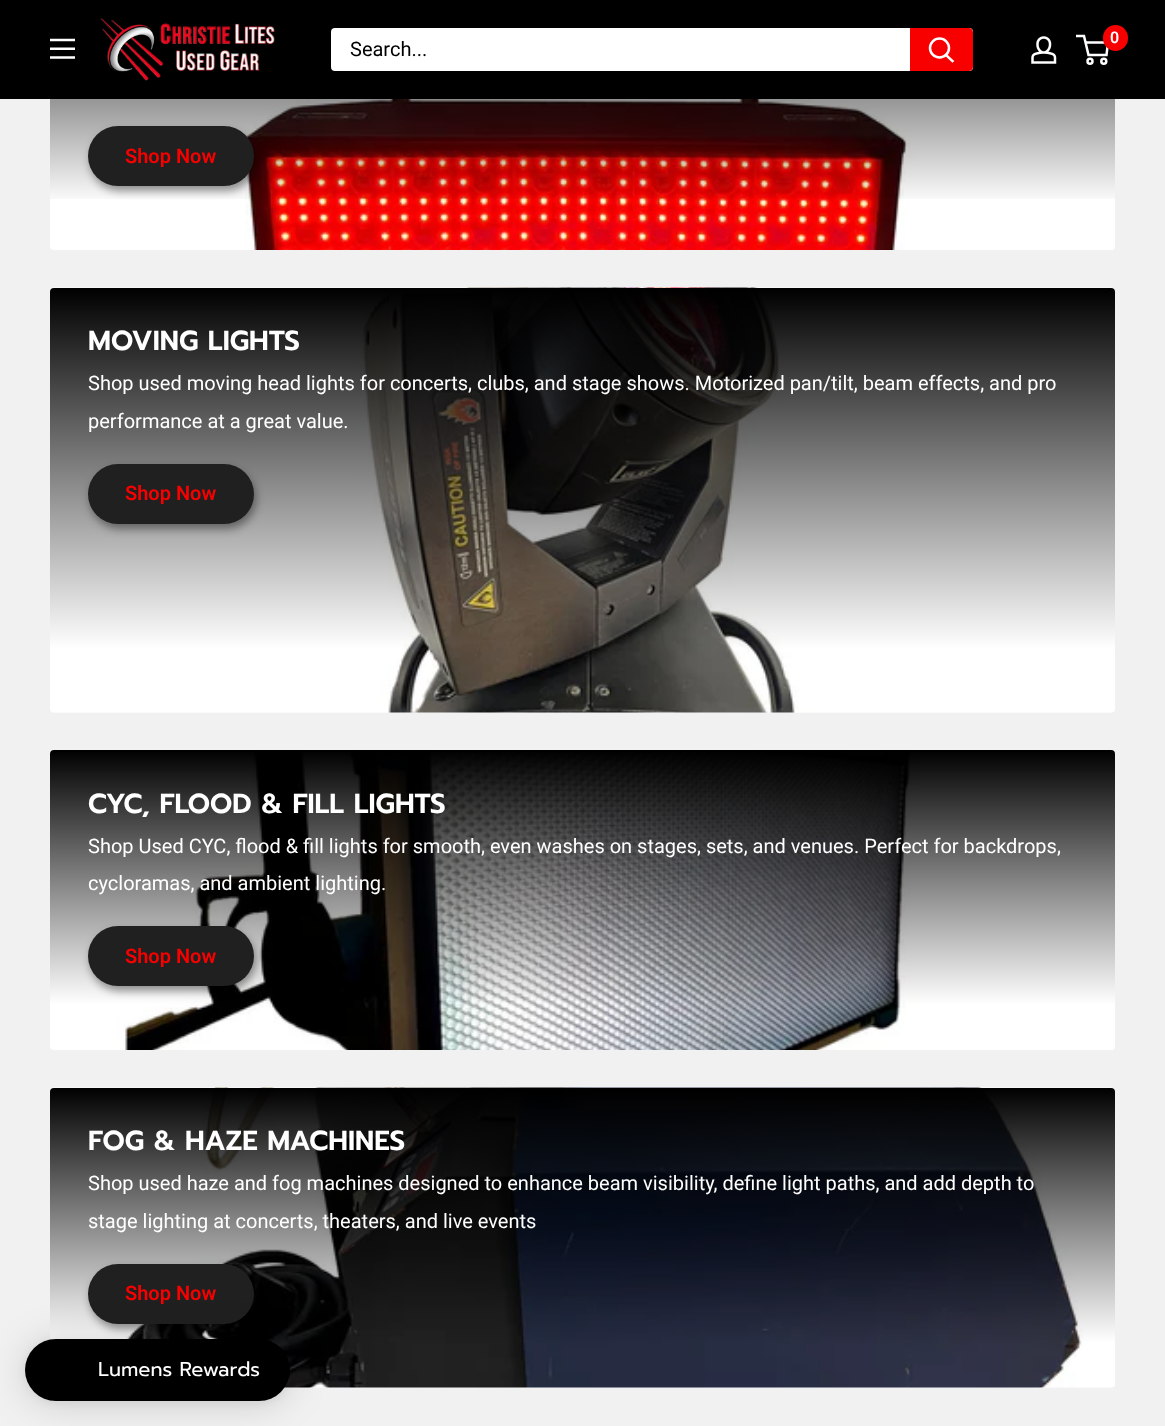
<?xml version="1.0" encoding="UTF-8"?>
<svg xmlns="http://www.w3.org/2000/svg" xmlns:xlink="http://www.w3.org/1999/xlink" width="1165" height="1426">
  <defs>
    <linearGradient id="g1" gradientUnits="userSpaceOnUse" x1="583" y1="250" x2="583" y2="-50"><stop offset="0.15" stop-color="#000000" stop-opacity="0" /><stop offset="1" stop-color="#000000" /></linearGradient>
    <linearGradient id="g2" gradientUnits="userSpaceOnUse" x1="583" y1="713" x2="583" y2="288"><stop offset="0.15" stop-color="#000000" stop-opacity="0" /><stop offset="1" stop-color="#000000" /></linearGradient>
    <linearGradient id="g3" gradientUnits="userSpaceOnUse" x1="583" y1="1050" x2="583" y2="750"><stop offset="0.15" stop-color="#000000" stop-opacity="0" /><stop offset="1" stop-color="#000000" /></linearGradient>
    <linearGradient id="g4" gradientUnits="userSpaceOnUse" x1="583" y1="1388" x2="583" y2="1088"><stop offset="0.15" stop-color="#000000" stop-opacity="0" /><stop offset="1" stop-color="#000000" /></linearGradient>
  </defs>
  <rect width="100%" height="100%" fill="#f1f1f1" />
  <rect width="1165" height="99" fill="#000000" />
  <image x="50" y="38" width="25" height="21" xlink:href="image1.png" />
  <image x="100" y="18" width="175" height="63" xlink:href="image2.png" />
  <rect x="331" y="28" width="642" height="43" rx="4" fill="#ffffff" />
  <path d="M 910 28 h 59 c 2 0 4 2 4 4 v 35 c 0 2 -2 4 -4 4 h -59 z" fill="#f90000" />
  <path d="M 952.5 61 l -6.5 -6" fill="none" stroke="#ffffff" stroke-width="2.5" stroke-linecap="square" />
  <circle cx="939.5" cy="48" r="9.5" fill="none" stroke="#ffffff" stroke-width="2.5" />
  <image x="1031" y="36" width="26" height="28" xlink:href="image3.png" />
  <circle cx="1090" cy="61.2" r="2.5" fill="none" stroke="#ffffff" stroke-width="2.5" />
  <circle cx="1103.8" cy="61.2" r="2.5" fill="none" stroke="#ffffff" stroke-width="2.5" />
  <path d="M 1085.5 42.5 h 22.5 l -1.5 12.5 h -18 l -4.5 -19 h -8" fill="none" stroke="#ffffff" stroke-width="2.5" />
  <rect x="1103" y="25" width="25" height="26" rx="12.5" fill="#f90000" />
  <image x="50" y="99" width="1065" height="151" xlink:href="image4.png" />
  <rect x="50" y="99" width="1065" height="100" fill="url(#g1)" />
  <rect x="90" y="131" width="166" height="60" rx="30" fill="#000000" fill-opacity="0.4" filter="blur(4px)" />
  <rect x="88" y="126" width="166" height="60" rx="30" fill="#202020" />
  <rect x="50" y="288" width="1065" height="425" rx="4" fill="#f3f4f4" />
  <image x="50" y="287" width="1065" height="426" xlink:href="image5.png" />
  <rect x="50" y="288" width="1065" height="425" rx="4" fill="url(#g2)" />
  <rect x="90" y="469" width="166" height="60" rx="30" fill="#000000" fill-opacity="0.4" filter="blur(4px)" />
  <rect x="88" y="464" width="166" height="60" rx="30" fill="#202020" />
  <image x="50" y="750" width="1065" height="300" xlink:href="image6.png" />
  <rect x="50" y="750" width="1065" height="300" rx="4" fill="url(#g3)" />
  <rect x="90" y="931" width="166" height="60" rx="30" fill="#000000" fill-opacity="0.4" filter="blur(4px)" />
  <rect x="88" y="926" width="166" height="60" rx="30" fill="#202020" />
  <rect x="50" y="1088" width="1065" height="300" rx="4" fill="#f3f4f4" />
  <image x="50" y="1087" width="1065" height="301" xlink:href="image7.png" />
  <rect x="50" y="1088" width="1065" height="300" rx="4" fill="url(#g4)" />
  <rect x="90" y="1269" width="166" height="60" rx="30" fill="#000000" fill-opacity="0.4" filter="blur(4px)" />
  <rect x="88" y="1264" width="166" height="60" rx="30" fill="#202020" />
  <rect x="25" y="1341" width="265" height="63" rx="31.5" fill="#000000" fill-opacity="0.15" filter="blur(19px)" />
  <rect x="25" y="1340" width="265" height="63" rx="31.5" fill="#000000" fill-opacity="0.05" filter="blur(4px)" />
  <rect x="25" y="1339" width="265" height="62" rx="31" fill="#000000" />
  <text x="350" y="56" style="font-family: Roboto; font-size: 20px; fill: #000000">Search...</text>
  <text x="1110" y="43" style="font-family: Roboto; font-size: 16px; font-weight: 600; fill: #ffffff">0</text>
  <text x="125" y="163" style="font-family: Roboto; font-size: 20px; font-weight: 600; fill: #f90000">Shop Now</text>
  <text x="88" y="350" style="font-family: Prompt; font-size: 27.5px; font-weight: 600; fill: #ffffff">MOVING LIGHTS</text>
  <text x="88" y="390" style="font-family: Roboto; font-size: 20px; fill: #ffffff">Shop used moving head lights for concerts, clubs, and stage shows. Motorized pan/tilt, beam effects, and pro</text>
  <text x="88" y="428" style="font-family: Roboto; font-size: 20px; fill: #ffffff">performance at a great value.</text>
  <text x="125" y="500" style="font-family: Roboto; font-size: 20px; font-weight: 600; fill: #f90000">Shop Now</text>
  <text x="88" y="813" style="font-family: Prompt; font-size: 27.5px; font-weight: 600; fill: #ffffff">CYC, FLOOD &amp; FILL LIGHTS</text>
  <text x="88" y="853" style="font-family: Roboto; font-size: 20px; fill: #ffffff">Shop Used CYC, flood &amp; fill lights for smooth, even washes on stages, sets, and venues. Perfect for backdrops,</text>
  <text x="88" y="890" style="font-family: Roboto; font-size: 20px; fill: #ffffff">cycloramas, and ambient lighting.</text>
  <text x="125" y="963" style="font-family: Roboto; font-size: 20px; font-weight: 600; fill: #f90000">Shop Now</text>
  <text x="88" y="1150" style="font-family: Prompt; font-size: 27.5px; font-weight: 600; fill: #ffffff">FOG &amp; HAZE MACHINES</text>
  <text x="88" y="1190" style="font-family: Roboto; font-size: 20px; fill: #ffffff">Shop used haze and fog machines designed to enhance beam visibility, define light paths, and add depth to</text>
  <text x="88" y="1228" style="font-family: Roboto; font-size: 20px; fill: #ffffff">stage lighting at concerts, theaters, and live events</text>
  <text x="125" y="1300" style="font-family: Roboto; font-size: 20px; font-weight: 600; fill: #f90000">Shop Now</text>
  <text x="98" y="1376" style="font-family: Prompt; font-size: 20px; fill: #ffffff">Lumens Rewards</text>
</svg>
